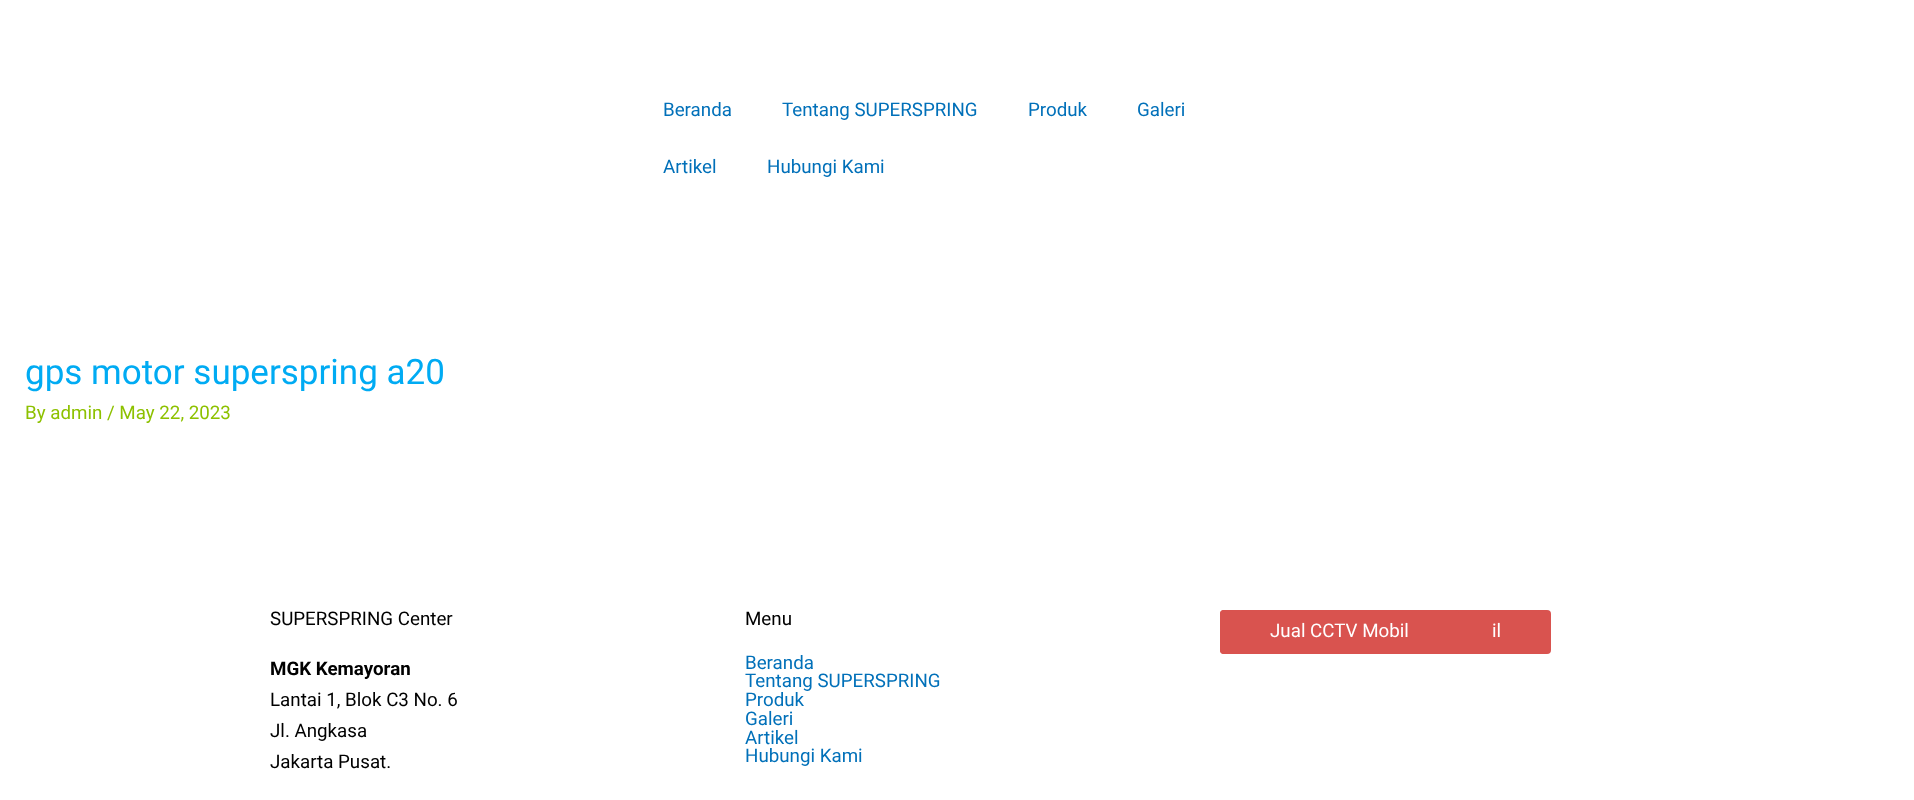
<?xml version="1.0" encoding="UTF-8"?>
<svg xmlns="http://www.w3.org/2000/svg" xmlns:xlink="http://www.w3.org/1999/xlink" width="1914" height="800">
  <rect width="100%" height="100%" fill="#ffffff" />
  <rect x="1364" y="610" width="187" height="44" rx="4" fill="#d9534f" />
  <rect x="1220" y="610" width="273" height="44" rx="4" fill="#d9534f" />
  <rect x="1220" y="610" width="239" height="44" rx="4" fill="#d9534f" />
  <text x="663" y="116" style="font-family: Roboto; font-size: 18.75px; fill: #0170b9">Beranda</text>
  <text x="782" y="116" style="font-family: Roboto; font-size: 18.75px; fill: #0170b9">Tentang SUPERSPRING</text>
  <text x="1028" y="116" style="font-family: Roboto; font-size: 18.75px; fill: #0170b9">Produk</text>
  <text x="1137" y="116" style="font-family: Roboto; font-size: 18.75px; fill: #0170b9">Galeri</text>
  <text x="663" y="173" style="font-family: Roboto; font-size: 18.75px; fill: #0170b9">Artikel</text>
  <text x="767" y="173" style="font-family: Roboto; font-size: 18.75px; fill: #0170b9">Hubungi Kami</text>
  <text x="25" y="384" style="font-family: Roboto; font-size: 35px; fill: #00abf3">gps motor superspring a20</text>
  <text x="25" y="419" style="font-family: Roboto; font-size: 18.75px; fill: #8dc100">By admin / May 22, 2023</text>
  <text x="270" y="625" style="font-family: Roboto; font-size: 18.75px; fill: #000000">SUPERSPRING Center</text>
  <text x="270" y="675" style="font-family: Roboto; font-size: 18.75px; font-weight: bold; fill: #000000">MGK Kemayoran</text>
  <text x="270" y="706" style="font-family: Roboto; font-size: 18.75px; fill: #000000">Lantai 1, Blok C3 No. 6</text>
  <text x="270" y="737" style="font-family: Roboto; font-size: 18.75px; fill: #000000">Jl. Angkasa</text>
  <text x="270" y="768" style="font-family: Roboto; font-size: 18.75px; fill: #000000">Jakarta Pusat.</text>
  <text x="745" y="625" style="font-family: Roboto; font-size: 18.75px; fill: #000000">Menu</text>
  <text x="745" y="669" style="font-family: Roboto; font-size: 18.75px; fill: #0170b9">Beranda</text>
  <text x="745" y="687" style="font-family: Roboto; font-size: 18.75px; fill: #0170b9">Tentang SUPERSPRING</text>
  <text x="745" y="706" style="font-family: Roboto; font-size: 18.75px; fill: #0170b9">Produk</text>
  <text x="745" y="725" style="font-family: Roboto; font-size: 18.75px; fill: #0170b9">Galeri</text>
  <text x="745" y="744" style="font-family: Roboto; font-size: 18.75px; fill: #0170b9">Artikel</text>
  <text x="745" y="762" style="font-family: Roboto; font-size: 18.75px; fill: #0170b9">Hubungi Kami</text>
  <text x="1270" y="637" style="font-family: Roboto; font-size: 18.75px; fill: #ffffff">Jual CCTV Mobil</text>
  <text x="1492" y="637" style="font-family: Roboto; font-size: 18.75px; fill: #ffffff">il</text>
</svg>
